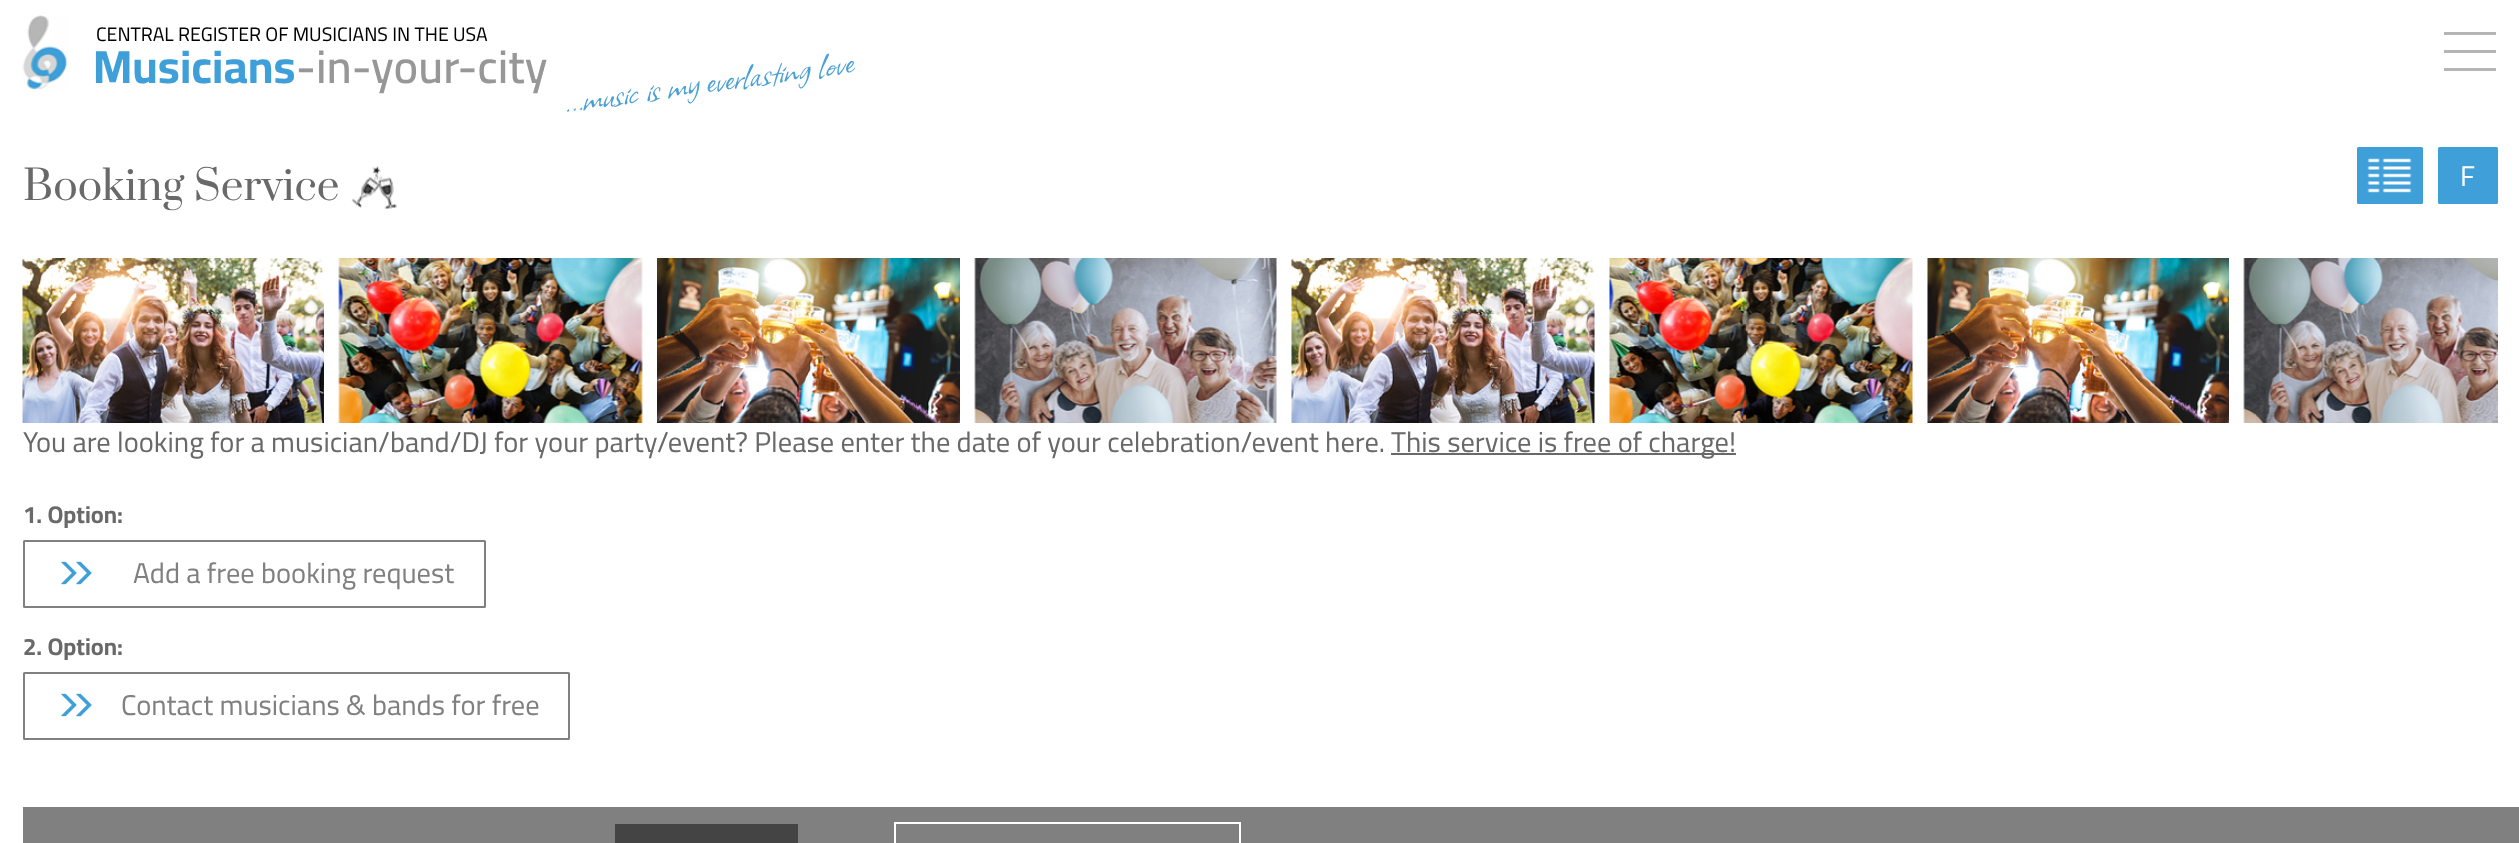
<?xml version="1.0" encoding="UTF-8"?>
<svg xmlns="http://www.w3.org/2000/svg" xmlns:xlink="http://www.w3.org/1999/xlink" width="2519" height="843">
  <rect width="100%" height="100%" fill="#ffffff" />
  <image x="22" y="15" width="46" height="75" xlink:href="image1.png" />
  <rect x="2444" y="32" width="52" height="3" fill="#b5b5b5" />
  <rect x="2444" y="50" width="52" height="3" fill="#b5b5b5" />
  <rect x="2444" y="68" width="52" height="3" fill="#b5b5b5" />
  <image x="351" y="166" width="46" height="43" xlink:href="image2.png" />
  <rect x="2357" y="147" width="66" height="57" rx="1.5" fill="#3f9fd8" />
  <image x="2367" y="158" width="45" height="35" xlink:href="image3.png" />
  <rect x="2438" y="147" width="60" height="57" rx="1.5" fill="#3f9fd8" />
  <image x="22" y="258" width="302" height="165" xlink:href="image4.png" />
  <image x="338" y="258" width="305" height="165" xlink:href="image5.png" />
  <image x="657" y="258" width="303" height="165" xlink:href="image6.png" />
  <image x="974" y="258" width="303" height="165" xlink:href="image7.png" />
  <image x="1291" y="258" width="304" height="165" xlink:href="image8.png" />
  <image x="1609" y="258" width="304" height="165" xlink:href="image9.png" />
  <image x="1927" y="258" width="302" height="165" xlink:href="image10.png" />
  <image x="2243" y="258" width="255" height="165" xlink:href="image11.png" />
  <rect x="1391" y="453" width="345" height="2" fill="#696969" />
  <rect x="24" y="541" width="461" height="66" rx="0.5" fill="none" stroke="#808080" stroke-width="2" />
  <image x="61" y="561" width="16" height="24" xlink:href="image12.png" />
  <image x="76" y="561" width="16" height="24" xlink:href="image13.png" />
  <rect x="24" y="673" width="545" height="66" rx="0.5" fill="none" stroke="#808080" stroke-width="2" />
  <image x="61" y="693" width="16" height="24" xlink:href="image12.png" />
  <image x="76" y="693" width="16" height="24" xlink:href="image13.png" />
  <rect x="23" y="807" width="2496" height="36" fill="#808080" />
  <rect x="615" y="824" width="183" height="19" fill="#444444" />
  <rect x="895" y="823" width="345" height="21" fill="none" stroke="#ffffff" stroke-width="2" />
  <text x="96" y="41" style="font-family: Cairo; font-size: 19.5px; fill: #000000">CENTRAL REGISTER OF MUSICIANS IN THE USA</text>
  <text x="93" y="83" style="font-family: Cairo; font-size: 46.5px; font-weight: bold; fill: #3f9fd8">Musicians</text>
  <text x="296" y="83" style="font-family: Cairo; font-size: 46.5px; font-weight: 600; fill: #979797">-in-your-city</text>
  <text x="564" y="112" transform="rotate(-8 564 112)" style="font-family: Allison; font-size: 45px; fill: #4aa0d4">...music is my everlasting love</text>
  <text x="23" y="200" style="font-family: Prata; font-size: 40.5px; fill: #696969">Booking Service</text>
  <text x="2460" y="186" style="font-family: Cairo; font-size: 28.5px; fill: #ffffff">F</text>
  <text x="23" y="452" style="font-family: Cairo; font-size: 28.5px; fill: #696969">You are looking for a musician/band/DJ for your party/event? Please enter the date of your celebration/event here.</text>
  <text x="1391" y="452" style="font-family: Cairo; font-size: 28.5px; fill: #696969">This service is free of charge!</text>
  <text x="23" y="523" style="font-family: Cairo; font-size: 24px; font-weight: bold; fill: #696969">1. Option:</text>
  <text x="133" y="583" style="font-family: Cairo; font-size: 28.5px; fill: #808080">Add a free booking request</text>
  <text x="23" y="655" style="font-family: Cairo; font-size: 24px; font-weight: bold; fill: #696969">2. Option:</text>
  <text x="121" y="715" style="font-family: Cairo; font-size: 28.5px; fill: #808080">Contact musicians &amp; bands for free</text>
</svg>
